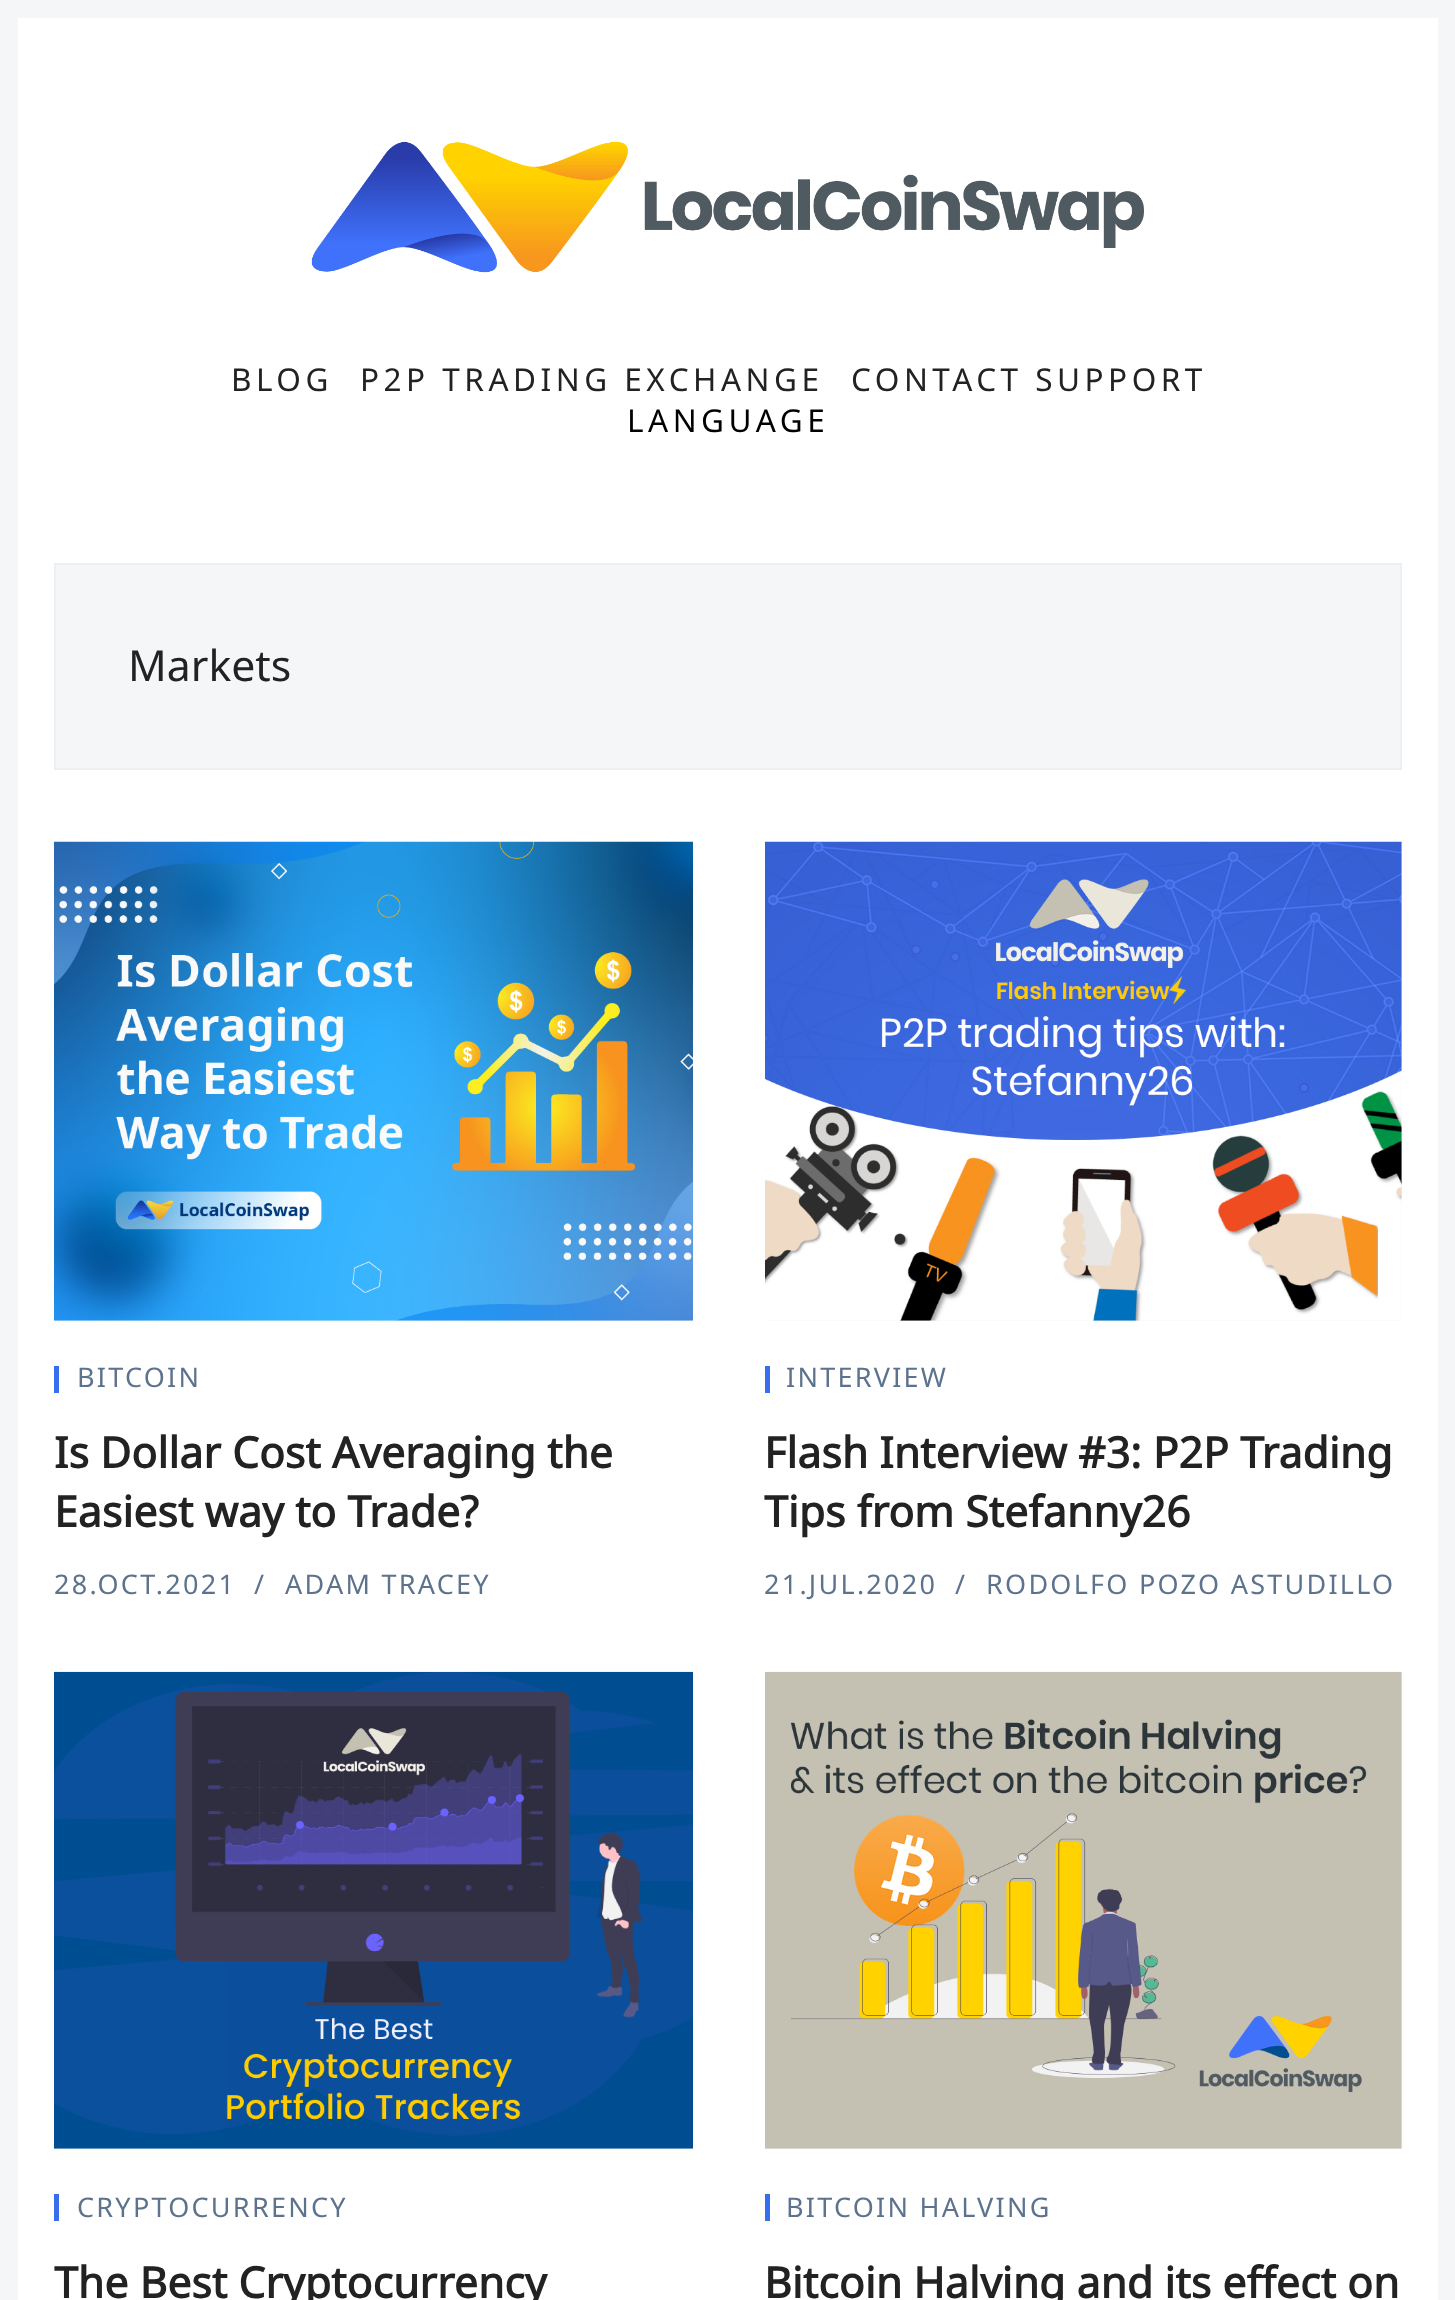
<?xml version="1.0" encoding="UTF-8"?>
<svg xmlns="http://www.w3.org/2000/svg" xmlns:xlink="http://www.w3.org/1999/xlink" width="1455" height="2300">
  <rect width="100%" height="100%" fill="#ffffff" />
  <rect x="9" y="9" width="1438" height="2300" fill="none" stroke="#f4f6f8" stroke-width="18" />
  <image x="311" y="141" width="833" height="132" xlink:href="image1.png" />
  <rect x="55" y="564" width="1346" height="205" fill="#f4f6f8" stroke="#ecf0f1" stroke-width="2" />
  <rect x="54" y="1320" width="639" height="1" fill="#f4f6f8" />
  <image x="54" y="841" width="639" height="480" xlink:href="image2.png" />
  <rect x="54" y="1366" width="5" height="27" fill="#386ded" />
  <rect x="765" y="842" width="637" height="479" fill="#f4f6f8" />
  <image x="765" y="841" width="637" height="480" xlink:href="image3.png" />
  <rect x="765" y="1366" width="5" height="27" fill="#386ded" />
  <rect x="54" y="2148" width="639" height="1" fill="#f4f6f8" />
  <image x="54" y="1671" width="639" height="478" xlink:href="image4.png" />
  <rect x="54" y="2194" width="5" height="27" fill="#386ded" />
  <rect x="765" y="1672" width="637" height="477" fill="#f4f6f8" />
  <image x="765" y="1671" width="637" height="478" xlink:href="image5.png" />
  <rect x="765" y="2194" width="5" height="27" fill="#386ded" />
  <text x="231" y="391" style="font-family: Noto Sans; font-size: 31.5px; letter-spacing: 4.5px; fill: #222222">BLOG</text>
  <text x="360" y="391" style="font-family: Noto Sans; font-size: 31.5px; letter-spacing: 4.5px; fill: #222222">P2P TRADING EXCHANGE</text>
  <text x="851" y="391" style="font-family: Noto Sans; font-size: 31.5px; letter-spacing: 4.5px; fill: #222222">CONTACT SUPPORT</text>
  <text x="627" y="432" style="font-family: Noto Sans; font-size: 31.5px; letter-spacing: 4.5px; fill: #000000">LANGUAGE</text>
  <text x="128" y="681" style="font-family: Noto Sans; font-size: 42.75px; fill: #222222">Markets</text>
  <text x="77" y="1387" style="font-family: Noto Sans; font-size: 27px; letter-spacing: 2.25px; fill: #5d738d">BITCOIN</text>
  <text x="54" y="1468" style="font-family: Noto Sans; font-size: 42.75px; font-weight: bold; fill: #222222">Is Dollar Cost Averaging the</text>
  <text x="54" y="1527" style="font-family: Noto Sans; font-size: 42.75px; font-weight: bold; fill: #222222">Easiest way to Trade?</text>
  <text x="54" y="1594" style="font-family: Noto Sans; font-size: 27px; letter-spacing: 2.25px; fill: #5d738d">28.OCT.2021</text>
  <text x="254" y="1594" style="font-family: Noto Sans; font-size: 27px; letter-spacing: 2.25px; fill: #5d738d">/</text>
  <text x="285" y="1594" style="font-family: Noto Sans; font-size: 27px; letter-spacing: 2.25px; fill: #5d738d">ADAM TRACEY</text>
  <text x="786" y="1387" style="font-family: Noto Sans; font-size: 27px; letter-spacing: 2.25px; fill: #5d738d">INTERVIEW</text>
  <text x="764" y="1468" style="font-family: Noto Sans; font-size: 42.75px; font-weight: bold; fill: #222222">Flash Interview #3: P2P Trading</text>
  <text x="764" y="1527" style="font-family: Noto Sans; font-size: 42.75px; font-weight: bold; fill: #222222">Tips from Stefanny26</text>
  <text x="764" y="1594" style="font-family: Noto Sans; font-size: 27px; letter-spacing: 2.25px; fill: #5d738d">21.JUL.2020</text>
  <text x="955" y="1594" style="font-family: Noto Sans; font-size: 27px; letter-spacing: 2.25px; fill: #5d738d">/</text>
  <text x="986" y="1594" style="font-family: Noto Sans; font-size: 27px; letter-spacing: 2.25px; fill: #5d738d">RODOLFO POZO ASTUDILLO</text>
  <text x="77" y="2217" style="font-family: Noto Sans; font-size: 27px; letter-spacing: 2.25px; fill: #5d738d">CRYPTOCURRENCY</text>
  <text x="54" y="2298" style="font-family: Noto Sans; font-size: 42.75px; font-weight: bold; fill: #222222">The Best Cryptocurrency</text>
  <text x="786" y="2217" style="font-family: Noto Sans; font-size: 27px; letter-spacing: 2.25px; fill: #5d738d">BITCOIN HALVING</text>
  <text x="764" y="2298" style="font-family: Noto Sans; font-size: 42.75px; font-weight: bold; fill: #222222">Bitcoin Halving and its effect on</text>
</svg>
